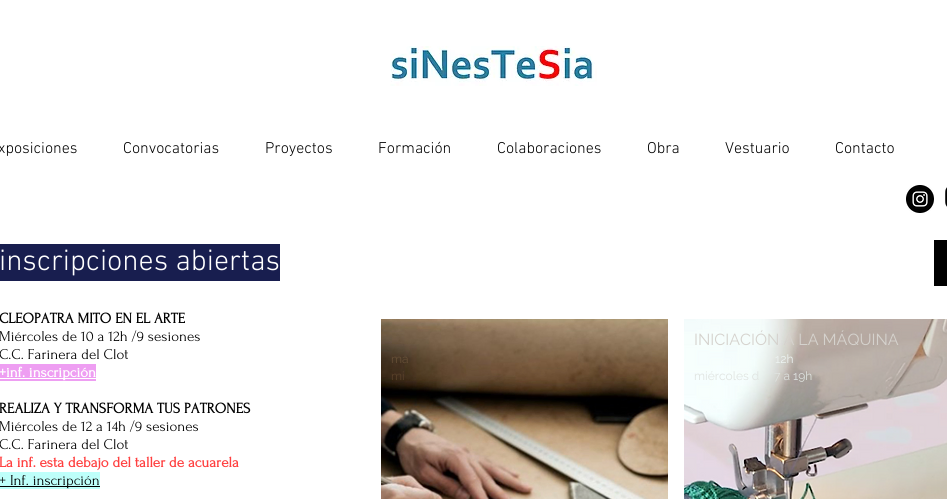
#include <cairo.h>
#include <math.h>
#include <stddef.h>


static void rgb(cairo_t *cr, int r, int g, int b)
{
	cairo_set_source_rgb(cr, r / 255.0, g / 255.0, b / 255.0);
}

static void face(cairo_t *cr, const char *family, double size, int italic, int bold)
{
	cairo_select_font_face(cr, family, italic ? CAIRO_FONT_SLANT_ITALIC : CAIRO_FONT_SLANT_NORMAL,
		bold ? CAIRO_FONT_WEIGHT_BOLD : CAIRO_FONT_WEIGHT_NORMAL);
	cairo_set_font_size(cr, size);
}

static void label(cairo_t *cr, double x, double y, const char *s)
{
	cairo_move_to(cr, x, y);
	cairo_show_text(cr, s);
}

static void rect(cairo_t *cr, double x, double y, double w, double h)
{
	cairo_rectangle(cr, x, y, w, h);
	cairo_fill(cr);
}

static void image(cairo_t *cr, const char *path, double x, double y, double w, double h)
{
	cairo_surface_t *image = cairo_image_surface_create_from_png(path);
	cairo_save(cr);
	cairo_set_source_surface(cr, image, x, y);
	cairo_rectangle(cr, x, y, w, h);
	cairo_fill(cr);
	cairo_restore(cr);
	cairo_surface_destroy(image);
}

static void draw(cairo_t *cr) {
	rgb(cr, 255, 255, 255);
	cairo_paint(cr);
	image(cr, "image0.png", 390, 46, 207, 40);
	face(cr, "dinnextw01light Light", 16, 0, 0);
	rgb(cr, 0, 0, 0);
	label(cr, -2, 153, "xposiciones");
	label(cr, 123, 153, "Convocatorias");
	label(cr, 265, 153, "Proyectos");
	label(cr, 378, 153, "Formación");
	label(cr, 497, 153, "Colaboraciones");
	label(cr, 647, 153, "Obra");
	label(cr, 725, 153, "Vestuario");
	label(cr, 835, 153, "Contacto");
	image(cr, "image1.png", 906, 185, 28, 28);
	image(cr, "image2.png", 945, 187, 2, 20);
	rgb(cr, 24, 30, 79);
	rect(cr, 0, 244, 280, 37);
	face(cr, "dinnextw01light Light", 30, 0, 0);
	rgb(cr, 255, 255, 255);
	label(cr, -1, 270, "inscripciones abiertas");
	rgb(cr, 0, 0, 0);
	rect(cr, 934, 240, 13, 46);
	face(cr, "Forum", 15, 0, 1);
	label(cr, -1, 323, "CLEOPATRA MITO EN EL ARTE");
	face(cr, "Forum", 15, 0, 0);
	label(cr, -1, 341, "Miércoles de 10 a 12h /9 sesiones");
	label(cr, -1, 359, "C.C. Farinera del Clot");
	rgb(cr, 238, 158, 242);
	rect(cr, 0, 364, 96, 17);
	rgb(cr, 255, 255, 255);
	rect(cr, 0, 378, 96, 1);
	face(cr, "Forum", 15, 0, 1);
	label(cr, -1, 377, "+inf. inscripción");
	rgb(cr, 0, 0, 0);
	label(cr, -1, 413, "REALIZA Y TRANSFORMA TUS PATRONES");
	face(cr, "Forum", 15, 0, 0);
	label(cr, -1, 431, "Miércoles de 12 a 14h /9 sesiones");
	label(cr, -1, 449, "C.C. Farinera del Clot");
	face(cr, "Forum", 15, 0, 1);
	rgb(cr, 255, 64, 64);
	label(cr, -1, 467, "La inf. esta debajo del taller de acuarela");
	rgb(cr, 190, 255, 250);
	rect(cr, 0, 472, 100, 17);
	rgb(cr, 0, 0, 0);
	rect(cr, 0, 486, 100, 1);
	face(cr, "Forum", 15, 0, 0);
	label(cr, -1, 485, "+ Inf. inscripción");
	image(cr, "image3.png", 381, 319, 287, 180);
	face(cr, "Raleway", 12, 0, 0);
	rgb(cr, 101, 78, 54);
	label(cr, 391, 363, "ma");
	rgb(cr, 87, 64, 41);
	label(cr, 391, 380, "mi");
	image(cr, "image4.png", 684, 319, 263, 180);
	face(cr, "Raleway", 16, 0, 0);
	rgb(cr, 213, 210, 205);
	label(cr, 694, 345, "INICIACIÓN A LA MÁQUINA");
	face(cr, "Raleway", 12, 0, 0);
	rgb(cr, 237, 243, 241);
	label(cr, 775, 363, "12h");
	rgb(cr, 223, 227, 224);
	label(cr, 694, 380, "miércoles d");
	label(cr, 774, 380, "7 a 19h");
}

int main(void) {
	cairo_surface_t *surface = cairo_image_surface_create(CAIRO_FORMAT_RGB24, 947, 499);
	cairo_t *cr = cairo_create(surface);
	cairo_font_options_t *options = cairo_font_options_create();
	cairo_font_options_set_hint_metrics(options, CAIRO_HINT_METRICS_OFF);
	cairo_font_options_set_hint_style(options, CAIRO_HINT_STYLE_NONE);
	cairo_set_font_options(cr, options);
	cairo_set_miter_limit(cr, 4);
	draw(cr);
	cairo_surface_write_to_png(surface, "render.png");
	cairo_font_options_destroy(options);
	cairo_destroy(cr);
	cairo_surface_destroy(surface);
	return 0;
}
